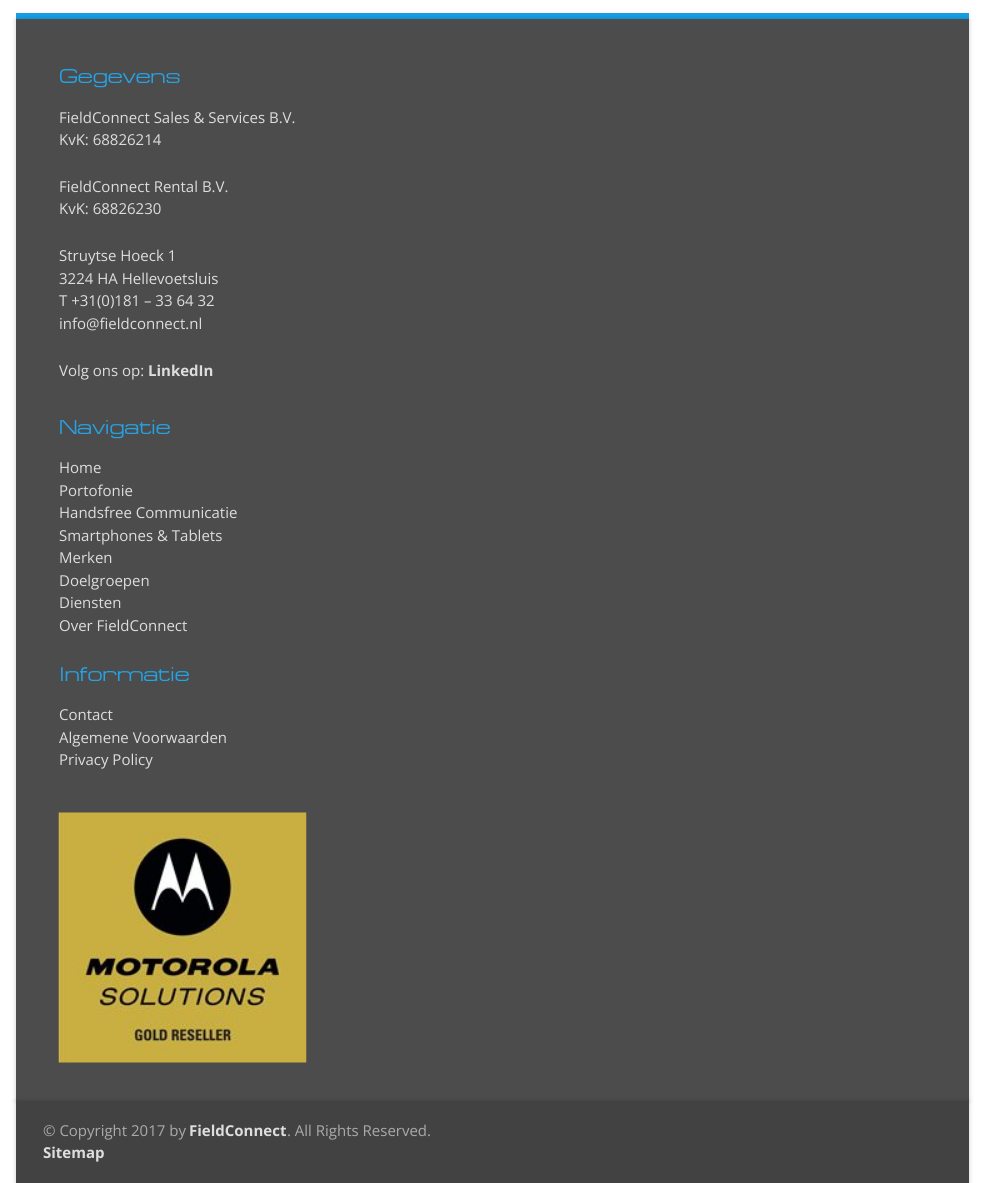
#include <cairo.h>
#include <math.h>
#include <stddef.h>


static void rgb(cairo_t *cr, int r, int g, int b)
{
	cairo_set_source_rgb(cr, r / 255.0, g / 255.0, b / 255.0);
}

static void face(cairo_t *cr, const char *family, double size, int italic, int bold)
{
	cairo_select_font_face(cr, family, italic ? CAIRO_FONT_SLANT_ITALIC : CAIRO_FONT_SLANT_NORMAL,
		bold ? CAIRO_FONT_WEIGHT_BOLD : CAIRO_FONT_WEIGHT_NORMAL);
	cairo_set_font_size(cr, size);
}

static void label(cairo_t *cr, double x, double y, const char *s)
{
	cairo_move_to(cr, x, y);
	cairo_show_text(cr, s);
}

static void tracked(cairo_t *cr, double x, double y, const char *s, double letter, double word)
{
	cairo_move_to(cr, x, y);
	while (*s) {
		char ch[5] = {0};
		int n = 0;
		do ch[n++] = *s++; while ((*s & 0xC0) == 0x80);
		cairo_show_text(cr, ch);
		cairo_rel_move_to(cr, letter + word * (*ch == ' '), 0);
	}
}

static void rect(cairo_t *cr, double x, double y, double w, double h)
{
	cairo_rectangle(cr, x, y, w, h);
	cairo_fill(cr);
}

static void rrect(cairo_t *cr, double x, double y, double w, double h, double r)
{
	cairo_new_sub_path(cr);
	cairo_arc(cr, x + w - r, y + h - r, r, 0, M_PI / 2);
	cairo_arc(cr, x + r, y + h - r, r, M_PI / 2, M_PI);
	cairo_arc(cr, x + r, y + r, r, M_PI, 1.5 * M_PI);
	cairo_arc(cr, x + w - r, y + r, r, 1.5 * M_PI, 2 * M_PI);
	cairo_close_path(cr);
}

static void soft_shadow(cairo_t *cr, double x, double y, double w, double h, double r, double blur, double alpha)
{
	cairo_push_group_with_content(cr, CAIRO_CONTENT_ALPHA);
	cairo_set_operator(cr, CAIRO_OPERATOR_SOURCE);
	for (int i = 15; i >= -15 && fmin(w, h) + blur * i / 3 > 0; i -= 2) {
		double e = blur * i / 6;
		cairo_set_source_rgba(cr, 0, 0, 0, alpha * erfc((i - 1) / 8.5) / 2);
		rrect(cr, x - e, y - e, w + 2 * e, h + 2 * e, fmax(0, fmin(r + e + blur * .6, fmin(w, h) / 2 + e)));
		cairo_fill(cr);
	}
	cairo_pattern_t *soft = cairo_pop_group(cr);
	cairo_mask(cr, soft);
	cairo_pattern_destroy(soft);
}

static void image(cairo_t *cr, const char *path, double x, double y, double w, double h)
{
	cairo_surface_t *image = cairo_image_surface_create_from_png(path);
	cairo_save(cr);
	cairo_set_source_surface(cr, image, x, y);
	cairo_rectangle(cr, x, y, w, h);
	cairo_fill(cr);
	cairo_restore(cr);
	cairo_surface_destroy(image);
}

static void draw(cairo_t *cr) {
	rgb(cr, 255, 255, 255);
	cairo_paint(cr);
	rgb(cr, 22, 159, 230);
	rect(cr, 16, 13, 953, 6);
	rgb(cr, 0, 0, 0);
	soft_shadow(cr, 16, 19, 953, 1082, 0, 2.5, 0.2);
	rgb(cr, 76, 76, 76);
	rect(cr, 16, 19, 953, 1082);
	face(cr, "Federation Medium", 20, 0, 0);
	rgb(cr, 35, 164, 231);
	tracked(cr, 59, 83, "Gegevens", -0.25, 0);
	face(cr, "Open Sans", 15, 0, 0);
	rgb(cr, 221, 221, 221);
	label(cr, 59, 123, "FieldConnect Sales & Services B.V.");
	label(cr, 59, 145, "KvK: 68826214");
	label(cr, 59, 192, "FieldConnect Rental B.V.");
	label(cr, 59, 214, "KvK: 68826230");
	label(cr, 59, 261, "Struytse Hoeck 1");
	label(cr, 59, 284, "3224 HA Hellevoetsluis");
	label(cr, 59, 306, "T +31(0)181 – 33 64 32");
	label(cr, 59, 329, "info@fieldconnect.nl");
	label(cr, 59, 376, "Volg ons op:");
	face(cr, "Open Sans", 15, 0, 1);
	label(cr, 148, 376, "LinkedIn");
	face(cr, "Federation Medium", 20, 0, 0);
	rgb(cr, 35, 164, 231);
	tracked(cr, 59, 434, "Navigatie", -0.25, 0);
	face(cr, "Open Sans", 15, 0, 0);
	rgb(cr, 221, 221, 221);
	label(cr, 59, 473, "Home");
	label(cr, 59, 496, "Portofonie");
	label(cr, 59, 518, "Handsfree Communicatie");
	label(cr, 59, 541, "Smartphones & Tablets");
	label(cr, 59, 563, "Merken");
	label(cr, 59, 586, "Doelgroepen");
	label(cr, 59, 608, "Diensten");
	label(cr, 59, 631, "Over FieldConnect");
	face(cr, "Federation Medium", 20, 0, 0);
	rgb(cr, 35, 164, 231);
	tracked(cr, 59, 681, "Informatie", -0.25, 0);
	face(cr, "Open Sans", 15, 0, 0);
	rgb(cr, 221, 221, 221);
	label(cr, 59, 720, "Contact");
	label(cr, 59, 743, "Algemene Voorwaarden");
	label(cr, 59, 765, "Privacy Policy");
	image(cr, "image0.png", 58, 812, 249, 251);
	rgb(cr, 0, 0, 0);
	soft_shadow(cr, 16, 1101, 953, 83, 0, 2.5, 0.2);
	rgb(cr, 66, 66, 66);
	rect(cr, 16, 1101, 953, 82);
	rgb(cr, 170, 170, 170);
	label(cr, 43, 1136, "© Copyright 2017 by");
	face(cr, "Open Sans", 15, 0, 1);
	rgb(cr, 221, 221, 221);
	label(cr, 189, 1136, "FieldConnect");
	face(cr, "Open Sans", 15, 0, 0);
	rgb(cr, 170, 170, 170);
	label(cr, 287, 1136, ". All Rights Reserved.");
	face(cr, "Open Sans", 15, 0, 1);
	rgb(cr, 221, 221, 221);
	label(cr, 43, 1158, "Sitemap");
}

int main(void) {
	cairo_surface_t *surface = cairo_image_surface_create(CAIRO_FORMAT_RGB24, 985, 1183);
	cairo_t *cr = cairo_create(surface);
	cairo_font_options_t *options = cairo_font_options_create();
	cairo_font_options_set_hint_metrics(options, CAIRO_HINT_METRICS_OFF);
	cairo_font_options_set_hint_style(options, CAIRO_HINT_STYLE_NONE);
	cairo_set_font_options(cr, options);
	cairo_set_miter_limit(cr, 4);
	draw(cr);
	cairo_surface_write_to_png(surface, "render.png");
	cairo_font_options_destroy(options);
	cairo_destroy(cr);
	cairo_surface_destroy(surface);
	return 0;
}
